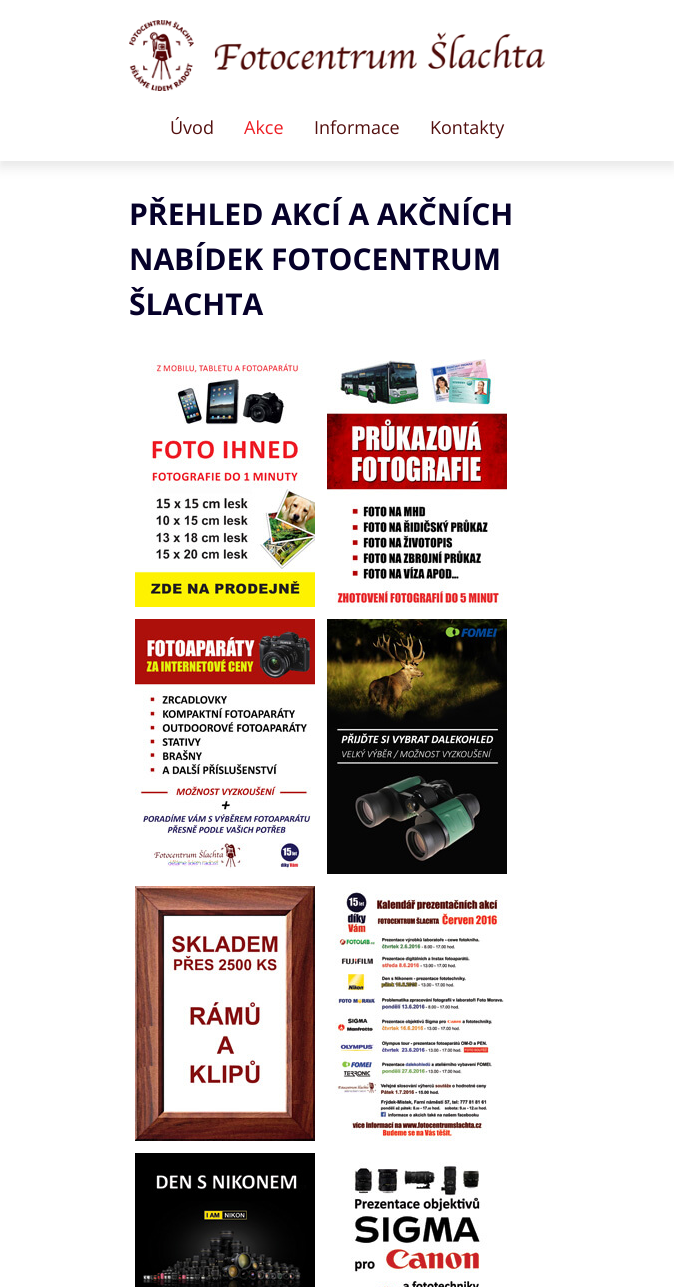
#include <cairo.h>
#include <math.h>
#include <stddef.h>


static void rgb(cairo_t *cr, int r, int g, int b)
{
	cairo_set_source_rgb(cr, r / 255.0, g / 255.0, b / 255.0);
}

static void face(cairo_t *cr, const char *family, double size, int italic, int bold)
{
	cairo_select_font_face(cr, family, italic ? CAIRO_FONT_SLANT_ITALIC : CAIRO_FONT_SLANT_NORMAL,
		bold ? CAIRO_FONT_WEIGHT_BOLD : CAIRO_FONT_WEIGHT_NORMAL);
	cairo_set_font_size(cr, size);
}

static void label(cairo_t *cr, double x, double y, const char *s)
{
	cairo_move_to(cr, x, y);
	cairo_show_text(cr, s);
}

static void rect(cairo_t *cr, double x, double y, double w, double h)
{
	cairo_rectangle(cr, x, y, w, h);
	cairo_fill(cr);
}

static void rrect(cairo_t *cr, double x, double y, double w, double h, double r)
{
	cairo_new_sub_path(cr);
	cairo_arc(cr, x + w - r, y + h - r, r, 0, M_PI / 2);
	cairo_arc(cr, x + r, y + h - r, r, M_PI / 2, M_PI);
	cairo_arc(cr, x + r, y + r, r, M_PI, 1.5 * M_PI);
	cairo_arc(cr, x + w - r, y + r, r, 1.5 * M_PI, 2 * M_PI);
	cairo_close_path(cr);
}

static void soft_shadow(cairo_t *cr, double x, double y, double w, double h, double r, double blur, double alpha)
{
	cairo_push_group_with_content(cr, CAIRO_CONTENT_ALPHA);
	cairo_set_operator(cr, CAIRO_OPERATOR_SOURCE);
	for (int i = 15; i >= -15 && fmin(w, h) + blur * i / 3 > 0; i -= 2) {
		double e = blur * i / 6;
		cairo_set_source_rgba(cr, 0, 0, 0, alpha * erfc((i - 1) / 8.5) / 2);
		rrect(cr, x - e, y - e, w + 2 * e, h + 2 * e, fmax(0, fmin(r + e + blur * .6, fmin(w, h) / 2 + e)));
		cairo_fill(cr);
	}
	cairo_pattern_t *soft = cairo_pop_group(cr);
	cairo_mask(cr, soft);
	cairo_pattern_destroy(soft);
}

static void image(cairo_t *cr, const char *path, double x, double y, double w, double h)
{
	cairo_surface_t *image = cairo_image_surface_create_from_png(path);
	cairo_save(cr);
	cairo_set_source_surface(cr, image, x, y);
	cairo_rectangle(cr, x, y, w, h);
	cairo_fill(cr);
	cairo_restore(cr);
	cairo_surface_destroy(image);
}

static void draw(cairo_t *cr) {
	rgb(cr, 255, 255, 255);
	cairo_paint(cr);
	rgb(cr, 0, 0, 0);
	soft_shadow(cr, 0, 6, 674, 161, 0, 6.5, 0.1);
	rgb(cr, 255, 255, 255);
	rect(cr, 0, 0, 674, 161);
	image(cr, "image0.png", 129, 20, 416, 71);
	face(cr, "Open Sans", 18, 0, 0);
	rgb(cr, 83, 16, 15);
	label(cr, 170, 134, "Úvod");
	rgb(cr, 237, 30, 36);
	label(cr, 244, 134, "Akce");
	rgb(cr, 83, 16, 15);
	label(cr, 314, 134, "Informace");
	label(cr, 430, 134, "Kontakty");
	face(cr, "Open Sans", 30, 0, 1);
	rgb(cr, 6, 1, 42);
	label(cr, 129, 225, "PŘEHLED AKCÍ A AKČNÍCH");
	label(cr, 129, 270, "NABÍDEK FOTOCENTRUM");
	label(cr, 129, 315, "ŠLACHTA");
	image(cr, "image1.png", 135, 360, 180, 247);
	image(cr, "image2.png", 327, 359, 180, 248);
	image(cr, "image3.png", 135, 619, 180, 252);
	image(cr, "image4.png", 327, 619, 180, 255);
	image(cr, "image5.png", 135, 886, 180, 255);
	image(cr, "image6.png", 335, 887, 169, 254);
	image(cr, "image7.png", 135, 1153, 180, 134);
	image(cr, "image8.png", 351, 1162, 136, 125);
}

int main(void) {
	cairo_surface_t *surface = cairo_image_surface_create(CAIRO_FORMAT_RGB24, 674, 1287);
	cairo_t *cr = cairo_create(surface);
	cairo_font_options_t *options = cairo_font_options_create();
	cairo_font_options_set_hint_metrics(options, CAIRO_HINT_METRICS_OFF);
	cairo_font_options_set_hint_style(options, CAIRO_HINT_STYLE_NONE);
	cairo_set_font_options(cr, options);
	cairo_set_miter_limit(cr, 4);
	draw(cr);
	cairo_surface_write_to_png(surface, "render.png");
	cairo_font_options_destroy(options);
	cairo_destroy(cr);
	cairo_surface_destroy(surface);
	return 0;
}
